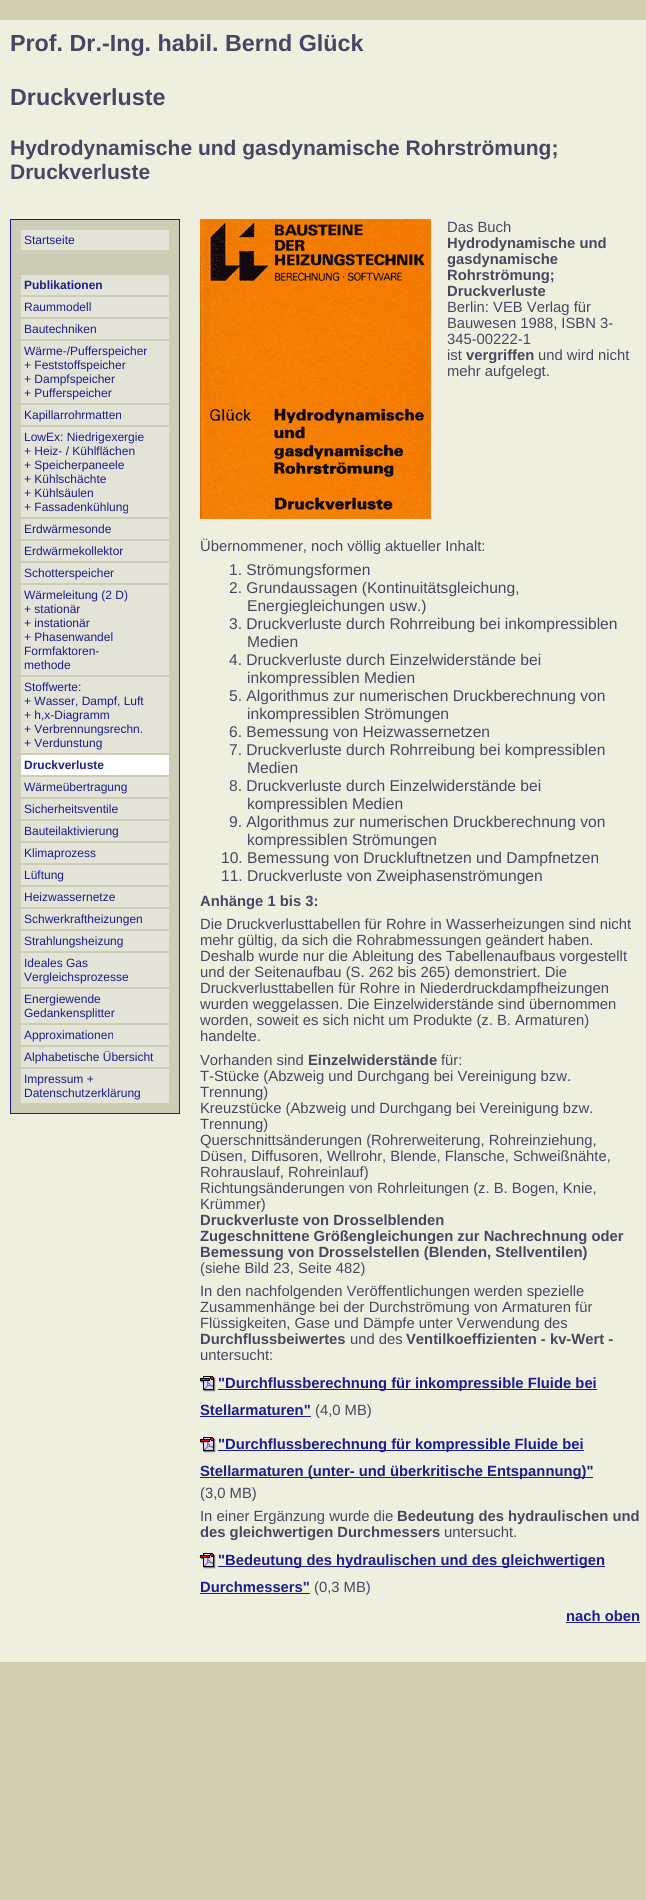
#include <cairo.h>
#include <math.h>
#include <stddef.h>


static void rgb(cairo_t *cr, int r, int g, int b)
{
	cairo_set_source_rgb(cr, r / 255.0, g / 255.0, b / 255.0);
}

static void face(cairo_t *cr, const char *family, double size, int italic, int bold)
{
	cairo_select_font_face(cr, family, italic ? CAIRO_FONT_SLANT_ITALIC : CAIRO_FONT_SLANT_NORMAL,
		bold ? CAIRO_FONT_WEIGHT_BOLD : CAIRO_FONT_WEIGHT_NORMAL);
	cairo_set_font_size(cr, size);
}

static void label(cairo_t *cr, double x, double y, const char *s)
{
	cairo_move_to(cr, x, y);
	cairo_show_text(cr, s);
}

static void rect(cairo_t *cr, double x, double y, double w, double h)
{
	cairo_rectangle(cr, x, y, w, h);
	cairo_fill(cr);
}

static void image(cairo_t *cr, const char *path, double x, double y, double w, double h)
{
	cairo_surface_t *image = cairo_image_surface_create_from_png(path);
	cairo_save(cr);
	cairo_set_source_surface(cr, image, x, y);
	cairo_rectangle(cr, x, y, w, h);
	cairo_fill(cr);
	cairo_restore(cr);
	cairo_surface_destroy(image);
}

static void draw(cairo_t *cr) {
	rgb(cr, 208, 208, 177);
	cairo_paint(cr);
	rgb(cr, 239, 239, 224);
	rect(cr, 0, 20, 646, 1642);
	face(cr, "Liberation Sans", 23.3, 0, 1);
	rgb(cr, 71, 71, 99);
	label(cr, 10, 51, "Prof. Dr.-Ing. habil. Bernd Glück");
	label(cr, 10, 105, "Druckverluste");
	face(cr, "Liberation Sans", 21, 0, 1);
	label(cr, 10, 155, "Hydrodynamische und gasdynamische Rohrströmung;");
	label(cr, 10, 179, "Druckverluste");
	rgb(cr, 204, 204, 183);
	cairo_rectangle(cr, 10.5, 219.5, 169, 894);
	cairo_fill_preserve(cr);
	rgb(cr, 28, 29, 142);
	cairo_set_line_width(cr, 1);
	cairo_stroke(cr);
	rgb(cr, 227, 227, 215);
	rect(cr, 21, 230, 148, 20);
	face(cr, "Liberation Sans", 12, 0, 0);
	rgb(cr, 28, 29, 142);
	label(cr, 24, 244, "Startseite");
	rgb(cr, 227, 227, 215);
	rect(cr, 21, 275, 148, 20);
	face(cr, "Liberation Sans", 12, 0, 1);
	rgb(cr, 28, 29, 142);
	label(cr, 24, 289, "Publikationen");
	rgb(cr, 227, 227, 215);
	rect(cr, 21, 297, 148, 20);
	face(cr, "Liberation Sans", 12, 0, 0);
	rgb(cr, 28, 29, 142);
	label(cr, 24, 311, "Raummodell");
	rgb(cr, 227, 227, 215);
	rect(cr, 21, 319, 148, 20);
	rgb(cr, 28, 29, 142);
	label(cr, 24, 333, "Bautechniken");
	rgb(cr, 227, 227, 215);
	rect(cr, 21, 341, 148, 62);
	rgb(cr, 28, 29, 142);
	label(cr, 24, 355, "Wärme-/Pufferspeicher");
	label(cr, 24, 369, "+ Feststoffspeicher");
	label(cr, 24, 383, "+ Dampfspeicher");
	label(cr, 24, 397, "+ Pufferspeicher");
	rgb(cr, 227, 227, 215);
	rect(cr, 21, 405, 148, 20);
	rgb(cr, 28, 29, 142);
	label(cr, 24, 419, "Kapillarrohrmatten");
	rgb(cr, 227, 227, 215);
	rect(cr, 21, 427, 148, 90);
	rgb(cr, 28, 29, 142);
	label(cr, 24, 441, "LowEx: Niedrigexergie");
	label(cr, 24, 455, "+ Heiz- / Kühlflächen");
	label(cr, 24, 469, "+ Speicherpaneele");
	label(cr, 24, 483, "+ Kühlschächte");
	label(cr, 24, 497, "+ Kühlsäulen");
	label(cr, 24, 511, "+ Fassadenkühlung");
	rgb(cr, 227, 227, 215);
	rect(cr, 21, 519, 148, 20);
	rgb(cr, 28, 29, 142);
	label(cr, 24, 533, "Erdwärmesonde");
	rgb(cr, 227, 227, 215);
	rect(cr, 21, 541, 148, 20);
	rgb(cr, 28, 29, 142);
	label(cr, 24, 555, "Erdwärmekollektor");
	rgb(cr, 227, 227, 215);
	rect(cr, 21, 563, 148, 20);
	rgb(cr, 28, 29, 142);
	label(cr, 24, 577, "Schotterspeicher");
	rgb(cr, 227, 227, 215);
	rect(cr, 21, 585, 148, 90);
	rgb(cr, 28, 29, 142);
	label(cr, 24, 599, "Wärmeleitung (2 D)");
	label(cr, 24, 613, "+ stationär");
	label(cr, 24, 627, "+ instationär");
	label(cr, 24, 641, "+ Phasenwandel");
	label(cr, 24, 655, "Formfaktoren-");
	label(cr, 24, 669, "methode");
	rgb(cr, 227, 227, 215);
	rect(cr, 21, 677, 148, 76);
	rgb(cr, 28, 29, 142);
	label(cr, 24, 691, "Stoffwerte:");
	label(cr, 24, 705, "+ Wasser, Dampf, Luft");
	label(cr, 24, 719, "+ h,x-Diagramm");
	label(cr, 24, 733, "+ Verbrennungsrechn.");
	label(cr, 24, 747, "+ Verdunstung");
	rgb(cr, 255, 255, 255);
	rect(cr, 21, 755, 148, 20);
	face(cr, "Liberation Sans", 12, 0, 1);
	rgb(cr, 28, 29, 142);
	label(cr, 24, 769, "Druckverluste");
	rgb(cr, 227, 227, 215);
	rect(cr, 21, 777, 148, 20);
	face(cr, "Liberation Sans", 12, 0, 0);
	rgb(cr, 28, 29, 142);
	label(cr, 24, 791, "Wärmeübertragung");
	rgb(cr, 227, 227, 215);
	rect(cr, 21, 799, 148, 20);
	rgb(cr, 28, 29, 142);
	label(cr, 24, 813, "Sicherheitsventile");
	rgb(cr, 227, 227, 215);
	rect(cr, 21, 821, 148, 20);
	rgb(cr, 28, 29, 142);
	label(cr, 24, 835, "Bauteilaktivierung");
	rgb(cr, 227, 227, 215);
	rect(cr, 21, 843, 148, 20);
	rgb(cr, 28, 29, 142);
	label(cr, 24, 857, "Klimaprozess");
	rgb(cr, 227, 227, 215);
	rect(cr, 21, 865, 148, 20);
	rgb(cr, 28, 29, 142);
	label(cr, 24, 879, "Lüftung");
	rgb(cr, 227, 227, 215);
	rect(cr, 21, 887, 148, 20);
	rgb(cr, 28, 29, 142);
	label(cr, 24, 901, "Heizwassernetze");
	rgb(cr, 227, 227, 215);
	rect(cr, 21, 909, 148, 20);
	rgb(cr, 28, 29, 142);
	label(cr, 24, 923, "Schwerkraftheizungen");
	rgb(cr, 227, 227, 215);
	rect(cr, 21, 931, 148, 20);
	rgb(cr, 28, 29, 142);
	label(cr, 24, 945, "Strahlungsheizung");
	rgb(cr, 227, 227, 215);
	rect(cr, 21, 953, 148, 34);
	rgb(cr, 28, 29, 142);
	label(cr, 24, 967, "Ideales Gas");
	label(cr, 24, 981, "Vergleichsprozesse");
	rgb(cr, 227, 227, 215);
	rect(cr, 21, 989, 148, 34);
	rgb(cr, 28, 29, 142);
	label(cr, 24, 1003, "Energiewende");
	label(cr, 24, 1017, "Gedankensplitter");
	rgb(cr, 227, 227, 215);
	rect(cr, 21, 1025, 148, 20);
	rgb(cr, 28, 29, 142);
	label(cr, 24, 1039, "Approximationen");
	rgb(cr, 227, 227, 215);
	rect(cr, 21, 1047, 148, 20);
	rgb(cr, 28, 29, 142);
	label(cr, 24, 1061, "Alphabetische Übersicht");
	rgb(cr, 227, 227, 215);
	rect(cr, 21, 1069, 148, 34);
	rgb(cr, 28, 29, 142);
	label(cr, 24, 1083, "Impressum +");
	label(cr, 24, 1097, "Datenschutzerklärung");
	image(cr, "image0.png", 200, 219, 231, 300);
	face(cr, "Liberation Sans", 14.8, 0, 0);
	rgb(cr, 71, 71, 99);
	label(cr, 447, 232, "Das Buch");
	face(cr, "Liberation Sans", 14.8, 0, 1);
	label(cr, 447, 248, "Hydrodynamische und");
	label(cr, 447, 264, "gasdynamische");
	label(cr, 447, 280, "Rohrströmung;");
	label(cr, 447, 296, "Druckverluste");
	face(cr, "Liberation Sans", 14.8, 0, 0);
	label(cr, 447, 312, "Berlin: VEB Verlag für");
	label(cr, 447, 328, "Bauwesen 1988, ISBN 3-");
	label(cr, 447, 344, "345-00222-1");
	label(cr, 447, 360, "ist");
	face(cr, "Liberation Sans", 14.8, 0, 1);
	label(cr, 466, 360, "vergriffen");
	face(cr, "Liberation Sans", 14.8, 0, 0);
	label(cr, 538, 360, "und wird nicht");
	label(cr, 447, 376, "mehr aufgelegt.");
	label(cr, 200, 551, "Übernommener, noch völlig aktueller Inhalt:");
	face(cr, "Liberation Sans", 15.6, 0, 0);
	label(cr, 229, 575, "1. Strömungsformen");
	label(cr, 229, 593, "2. Grundaussagen (Kontinuitätsgleichung,");
	label(cr, 247, 611, "Energiegleichungen usw.)");
	label(cr, 229, 629, "3. Druckverluste durch Rohrreibung bei inkompressiblen");
	label(cr, 247, 647, "Medien");
	label(cr, 229, 665, "4. Druckverluste durch Einzelwiderstände bei");
	label(cr, 247, 683, "inkompressiblen Medien");
	label(cr, 229, 701, "5. Algorithmus zur numerischen Druckberechnung von");
	label(cr, 247, 719, "inkompressiblen Strömungen");
	label(cr, 229, 737, "6. Bemessung von Heizwassernetzen");
	label(cr, 229, 755, "7. Druckverluste durch Rohrreibung bei kompressiblen");
	label(cr, 247, 773, "Medien");
	label(cr, 229, 791, "8. Druckverluste durch Einzelwiderstände bei");
	label(cr, 247, 809, "kompressiblen Medien");
	label(cr, 229, 827, "9. Algorithmus zur numerischen Druckberechnung von");
	label(cr, 247, 845, "kompressiblen Strömungen");
	label(cr, 221, 863, "10. Bemessung von Druckluftnetzen und Dampfnetzen");
	label(cr, 221, 881, "11. Druckverluste von Zweiphasenströmungen");
	face(cr, "Liberation Sans", 14.8, 0, 1);
	label(cr, 200, 906, "Anhänge 1 bis 3:");
	face(cr, "Liberation Sans", 14.8, 0, 0);
	label(cr, 200, 929, "Die Druckverlusttabellen für Rohre in Wasserheizungen sind nicht");
	label(cr, 200, 945, "mehr gültig, da sich die Rohrabmessungen geändert haben.");
	label(cr, 200, 961, "Deshalb wurde nur die Ableitung des Tabellenaufbaus vorgestellt");
	label(cr, 200, 977, "und der Seitenaufbau (S. 262 bis 265) demonstriert. Die");
	label(cr, 200, 993, "Druckverlusttabellen für Rohre in Niederdruckdampfheizungen");
	label(cr, 200, 1009, "wurden weggelassen. Die Einzelwiderstände sind übernommen");
	label(cr, 200, 1025, "worden, soweit es sich nicht um Produkte (z. B. Armaturen)");
	label(cr, 200, 1041, "handelte.");
	label(cr, 200, 1065, "Vorhanden sind");
	face(cr, "Liberation Sans", 14.8, 0, 1);
	label(cr, 308, 1065, "Einzelwiderstände");
	face(cr, "Liberation Sans", 14.8, 0, 0);
	label(cr, 441, 1065, "für:");
	label(cr, 200, 1081, "T-Stücke (Abzweig und Durchgang bei Vereinigung bzw.");
	label(cr, 200, 1097, "Trennung)");
	label(cr, 200, 1113, "Kreuzstücke (Abzweig und Durchgang bei Vereinigung bzw.");
	label(cr, 200, 1129, "Trennung)");
	label(cr, 200, 1145, "Querschnittsänderungen (Rohrerweiterung, Rohreinziehung,");
	label(cr, 200, 1161, "Düsen, Diffusoren,");
	label(cr, 327, 1161, "Wellrohr, Blende, Flansche, Schweißnähte,");
	label(cr, 200, 1177, "Rohrauslauf, Rohreinlauf)");
	label(cr, 200, 1193, "Richtungsänderungen von Rohrleitungen (z. B. Bogen, Knie,");
	label(cr, 200, 1209, "Krümmer)");
	face(cr, "Liberation Sans", 14.8, 0, 1);
	label(cr, 200, 1225, "Druckverluste von Drosselblenden");
	label(cr, 200, 1241, "Zugeschnittene Größengleichungen zur Nachrechnung oder");
	label(cr, 200, 1257, "Bemessung von Drosselstellen (Blenden, Stellventilen)");
	face(cr, "Liberation Sans", 14.8, 0, 0);
	label(cr, 200, 1273, "(siehe Bild 23, Seite 482)");
	label(cr, 200, 1296, "In den nachfolgenden Veröffentlichungen werden spezielle");
	label(cr, 200, 1312, "Zusammenhänge bei der Durchströmung von Armaturen für");
	label(cr, 200, 1328, "Flüssigkeiten, Gase und Dämpfe unter Verwendung des");
	face(cr, "Liberation Sans", 14.8, 0, 1);
	label(cr, 200, 1344, "Durchflussbeiwertes");
	face(cr, "Liberation Sans", 14.8, 0, 0);
	label(cr, 350, 1344, "und des");
	face(cr, "Liberation Sans", 14.8, 0, 1);
	label(cr, 406, 1344, "Ventilkoeffizienten - kv-Wert -");
	face(cr, "Liberation Sans", 14.8, 0, 0);
	label(cr, 200, 1360, "untersucht:");
	image(cr, "image1.png", 200, 1376, 16, 16);
	rgb(cr, 28, 29, 142);
	rect(cr, 218, 1389, 379, 1);
	face(cr, "Liberation Sans", 14.8, 0, 1);
	label(cr, 218, 1388, "\"Durchflussberechnung für inkompressible Fluide bei");
	label(cr, 200, 1415, "Stellarmaturen\"");
	rect(cr, 200, 1416, 111, 1);
	face(cr, "Liberation Sans", 14.8, 0, 0);
	rgb(cr, 71, 71, 99);
	label(cr, 315, 1415, "(4,0 MB)");
	image(cr, "image1.png", 200, 1437, 16, 16);
	rgb(cr, 28, 29, 142);
	rect(cr, 218, 1450, 366, 1);
	face(cr, "Liberation Sans", 14.8, 0, 1);
	label(cr, 218, 1449, "\"Durchflussberechnung für kompressible Fluide bei");
	rect(cr, 200, 1477, 393, 1);
	label(cr, 200, 1476, "Stellarmaturen (unter- und überkritische Entspannung)\"");
	face(cr, "Liberation Sans", 14.8, 0, 0);
	rgb(cr, 71, 71, 99);
	label(cr, 200, 1498, "(3,0 MB)");
	label(cr, 200, 1521, "In einer Ergänzung wurde die");
	face(cr, "Liberation Sans", 14.8, 0, 1);
	label(cr, 397, 1521, "Bedeutung des hydraulischen und");
	label(cr, 200, 1537, "des gleichwertigen Durchmessers");
	face(cr, "Liberation Sans", 14.8, 0, 0);
	label(cr, 444, 1537, "untersucht.");
	image(cr, "image1.png", 200, 1553, 16, 16);
	rgb(cr, 28, 29, 142);
	rect(cr, 218, 1566, 387, 1);
	face(cr, "Liberation Sans", 14.8, 0, 1);
	label(cr, 218, 1565, "\"Bedeutung des hydraulischen und des gleichwertigen");
	label(cr, 200, 1592, "Durchmessers\"");
	rect(cr, 200, 1593, 110, 1);
	face(cr, "Liberation Sans", 14.8, 0, 0);
	rgb(cr, 71, 71, 99);
	label(cr, 314, 1592, "(0,3 MB)");
	face(cr, "Liberation Sans", 14.8, 0, 1);
	rgb(cr, 28, 29, 142);
	label(cr, 566, 1621, "nach oben");
	rect(cr, 566, 1622, 74, 1);
}

int main(void) {
	cairo_surface_t *surface = cairo_image_surface_create(CAIRO_FORMAT_RGB24, 646, 1900);
	cairo_t *cr = cairo_create(surface);
	cairo_font_options_t *options = cairo_font_options_create();
	cairo_font_options_set_hint_metrics(options, CAIRO_HINT_METRICS_OFF);
	cairo_font_options_set_hint_style(options, CAIRO_HINT_STYLE_NONE);
	cairo_set_font_options(cr, options);
	cairo_set_miter_limit(cr, 4);
	draw(cr);
	cairo_surface_write_to_png(surface, "render.png");
	cairo_font_options_destroy(options);
	cairo_destroy(cr);
	cairo_surface_destroy(surface);
	return 0;
}
